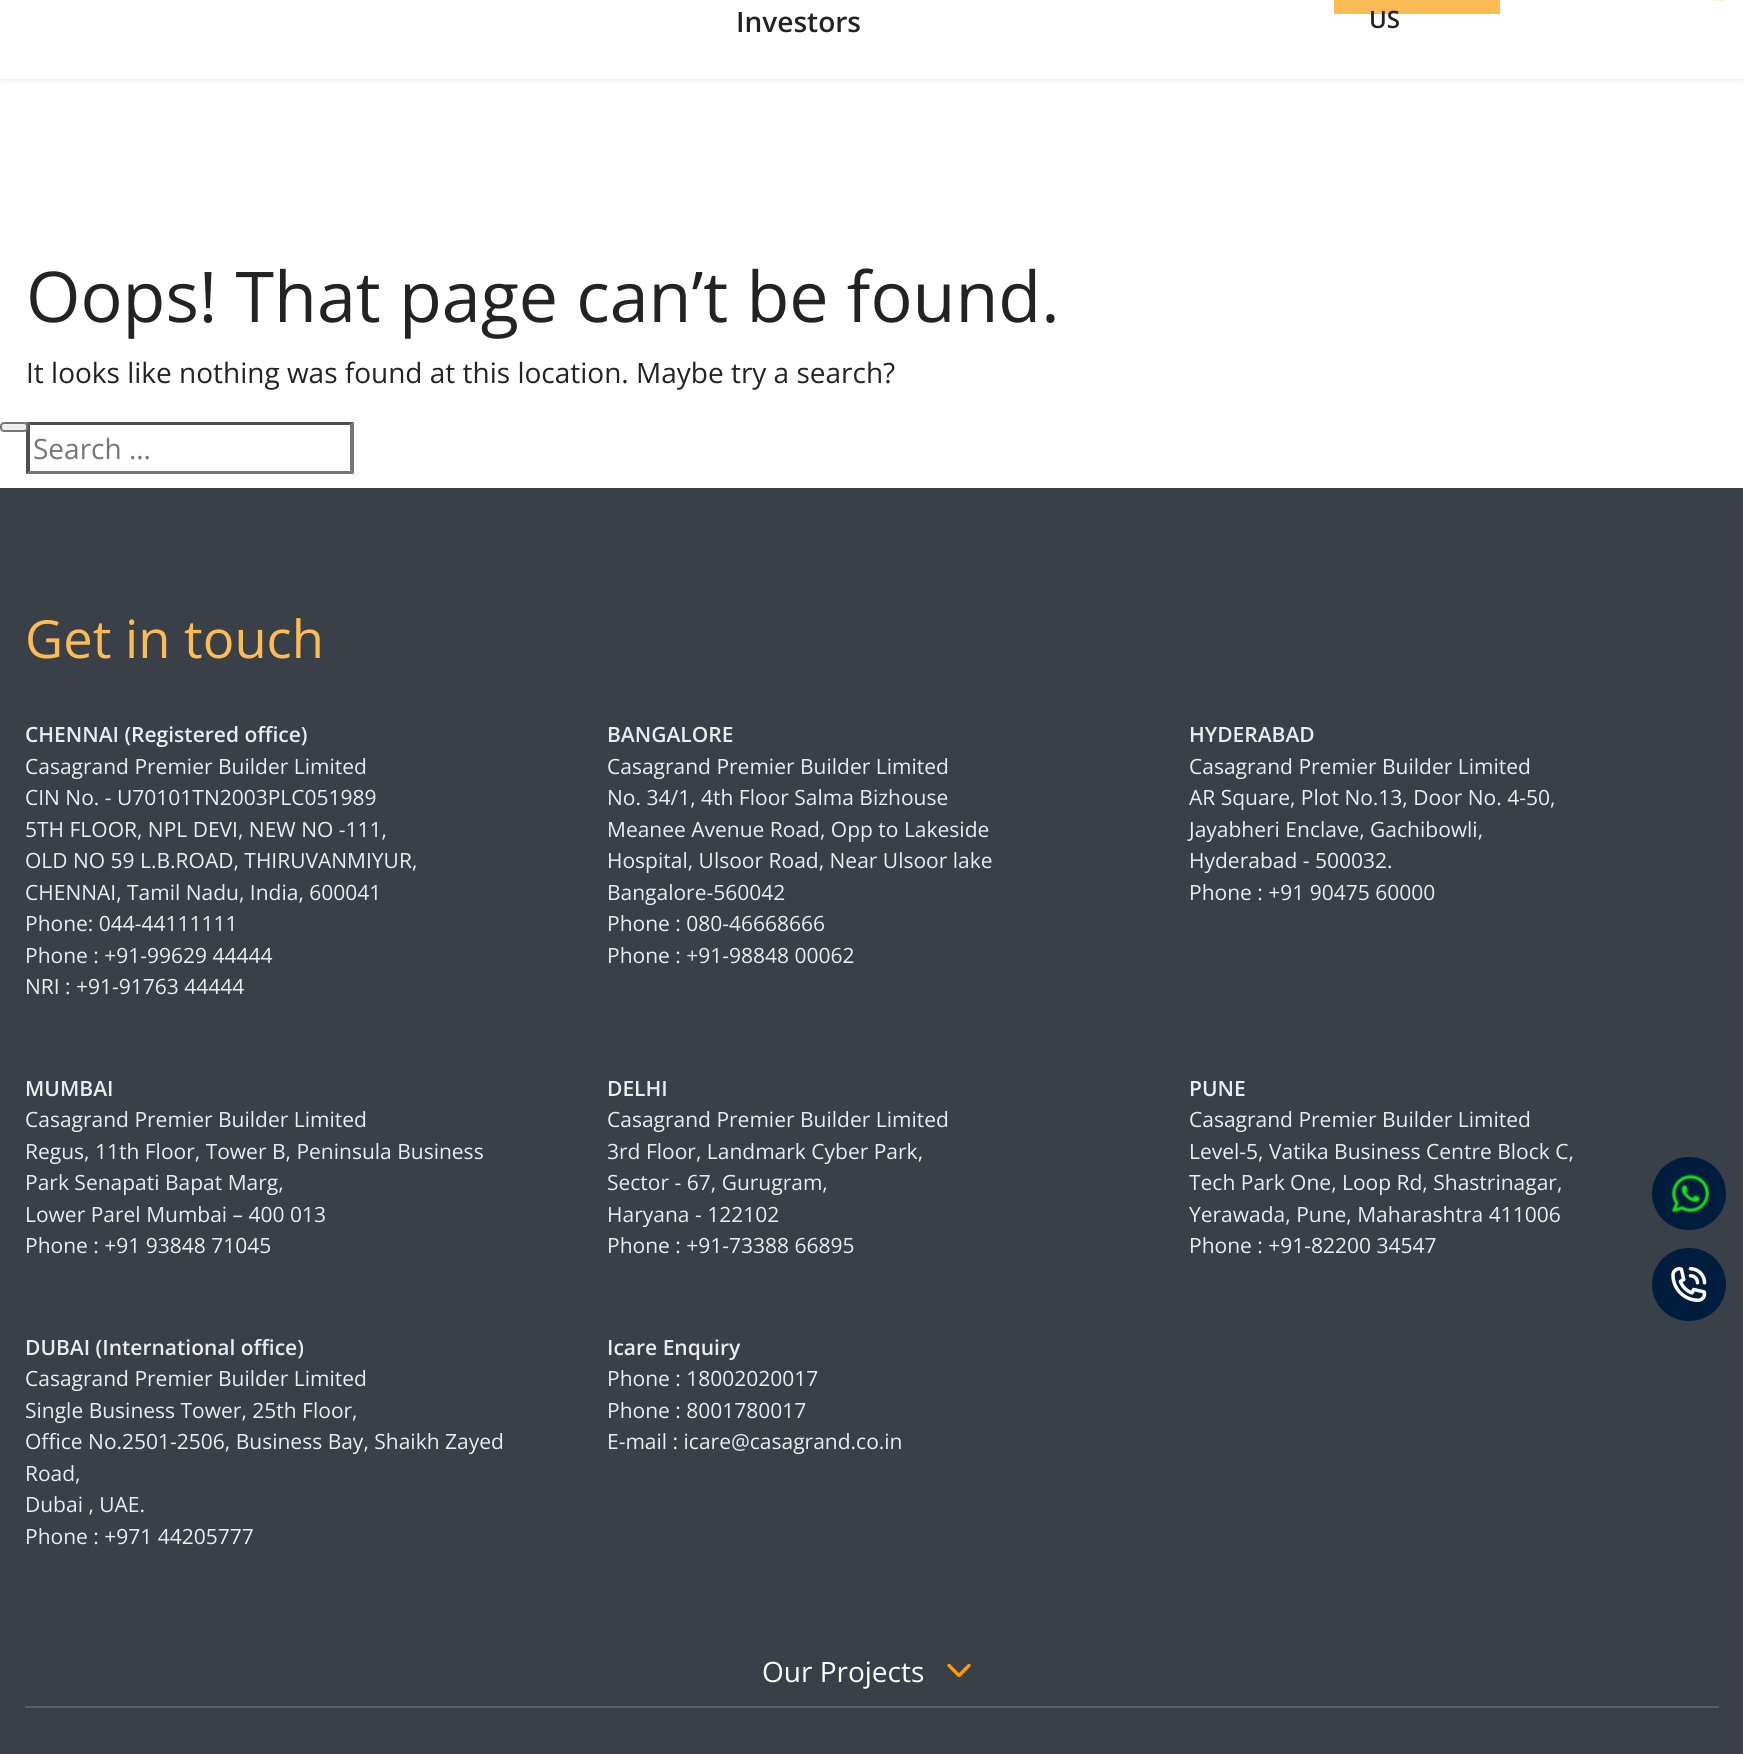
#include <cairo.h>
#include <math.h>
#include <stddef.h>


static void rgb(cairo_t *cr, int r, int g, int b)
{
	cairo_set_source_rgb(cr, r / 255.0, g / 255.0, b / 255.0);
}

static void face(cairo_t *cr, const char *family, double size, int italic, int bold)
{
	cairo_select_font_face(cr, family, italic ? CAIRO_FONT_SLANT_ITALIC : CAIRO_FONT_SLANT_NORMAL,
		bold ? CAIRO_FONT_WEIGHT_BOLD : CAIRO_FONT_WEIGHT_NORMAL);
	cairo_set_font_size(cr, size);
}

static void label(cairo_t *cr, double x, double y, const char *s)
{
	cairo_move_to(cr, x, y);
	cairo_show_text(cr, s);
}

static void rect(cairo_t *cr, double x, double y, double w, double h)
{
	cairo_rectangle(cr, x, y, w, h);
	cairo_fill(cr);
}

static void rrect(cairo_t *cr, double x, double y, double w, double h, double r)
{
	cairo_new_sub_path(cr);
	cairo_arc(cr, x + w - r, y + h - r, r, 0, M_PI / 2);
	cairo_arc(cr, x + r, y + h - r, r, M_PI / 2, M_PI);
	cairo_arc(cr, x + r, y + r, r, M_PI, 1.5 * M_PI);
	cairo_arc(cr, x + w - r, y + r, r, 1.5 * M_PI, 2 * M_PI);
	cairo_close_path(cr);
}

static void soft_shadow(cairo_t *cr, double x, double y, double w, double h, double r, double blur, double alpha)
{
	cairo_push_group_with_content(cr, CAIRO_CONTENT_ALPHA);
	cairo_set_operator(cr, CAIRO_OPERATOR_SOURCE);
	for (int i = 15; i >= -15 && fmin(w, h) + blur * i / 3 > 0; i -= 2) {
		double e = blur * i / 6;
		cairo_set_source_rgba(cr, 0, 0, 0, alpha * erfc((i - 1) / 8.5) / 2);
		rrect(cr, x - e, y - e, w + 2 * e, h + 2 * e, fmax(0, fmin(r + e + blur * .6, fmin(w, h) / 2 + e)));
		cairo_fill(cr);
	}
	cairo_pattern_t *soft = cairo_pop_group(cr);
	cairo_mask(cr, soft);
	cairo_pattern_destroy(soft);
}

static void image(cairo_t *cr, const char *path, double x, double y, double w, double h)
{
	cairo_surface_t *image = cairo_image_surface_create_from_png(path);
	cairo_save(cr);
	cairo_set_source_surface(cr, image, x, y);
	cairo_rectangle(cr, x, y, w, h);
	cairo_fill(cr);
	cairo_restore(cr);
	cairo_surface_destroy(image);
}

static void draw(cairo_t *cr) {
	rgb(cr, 255, 255, 255);
	cairo_paint(cr);
	rgb(cr, 0, 0, 0);
	soft_shadow(cr, 0, -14, 1743, 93, 0, 4.5, 0.1);
	rgb(cr, 255, 255, 255);
	rect(cr, 0, 0, 1743, 79);
	rgb(cr, 252, 187, 85);
	cairo_new_path(cr);
	cairo_move_to(cr, 1692, -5);
	cairo_line_to(cr, 1708, -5);
	cairo_curve_to(cr, 1711, -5, 1728, -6, 1731, -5);
	cairo_line_to(cr, 1731, -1);
	cairo_curve_to(cr, 1728, 1, 1711, 0, 1708, 0);
	cairo_line_to(cr, 1687, 0);
	cairo_line_to(cr, 1685, -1);
	cairo_line_to(cr, 1685, -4);
	cairo_close_path(cr);
	cairo_fill(cr);
	face(cr, "Open Sans SemiBold", 28, 0, 0);
	rgb(cr, 35, 35, 35);
	label(cr, 736, 32, "Investors");
	rgb(cr, 252, 187, 85);
	rect(cr, 1334, 0, 166, 14);
	face(cr, "Open Sans SemiBold", 24, 0, 0);
	rgb(cr, 35, 35, 35);
	label(cr, 1369, 28, "US");
	face(cr, "Open Sans", 70, 0, 0);
	label(cr, 26, 322, "Oops! That page can’t be found.");
	face(cr, "Open Sans", 28, 0, 0);
	label(cr, 26, 383, "It looks like nothing was found at this location. Maybe try a search?");
	rgb(cr, 79, 79, 79);
	cairo_new_path(cr);
	cairo_move_to(cr, 26, 422);
	cairo_line_to(cr, 354, 422);
	cairo_line_to(cr, 350, 425);
	cairo_line_to(cr, 30, 425);
	cairo_close_path(cr);
	cairo_fill(cr);
	rgb(cr, 118, 118, 118);
	cairo_new_path(cr);
	cairo_move_to(cr, 354, 422);
	cairo_line_to(cr, 354, 474);
	cairo_line_to(cr, 350, 471);
	cairo_line_to(cr, 350, 425);
	cairo_close_path(cr);
	cairo_fill(cr);
	cairo_new_path(cr);
	cairo_move_to(cr, 354, 474);
	cairo_line_to(cr, 26, 474);
	cairo_line_to(cr, 30, 471);
	cairo_line_to(cr, 350, 471);
	cairo_close_path(cr);
	cairo_fill(cr);
	rgb(cr, 79, 79, 79);
	cairo_new_path(cr);
	cairo_move_to(cr, 26, 474);
	cairo_line_to(cr, 26, 422);
	cairo_line_to(cr, 30, 425);
	cairo_line_to(cr, 30, 471);
	cairo_close_path(cr);
	cairo_fill(cr);
	rgb(cr, 239, 239, 239);
	rrect(cr, 1, 423, 26, 8, 3);
	cairo_fill_preserve(cr);
	rgb(cr, 118, 118, 118);
	cairo_stroke(cr);
	rgb(cr, 117, 117, 117);
	label(cr, 33, 459, "Search …");
	rgb(cr, 58, 64, 72);
	rect(cr, 0, 488, 1743, 1266);
	face(cr, "Open Sans", 52.5, 0, 0);
	rgb(cr, 252, 187, 85);
	label(cr, 25, 658, "Get in touch");
	face(cr, "Open Sans SemiBold", 21, 0, 0);
	rgb(cr, 235, 236, 237);
	label(cr, 25, 742, "CHENNAI (Registered office)");
	face(cr, "Open Sans", 21, 0, 0);
	label(cr, 25, 774, "Casagrand Premier Builder Limited");
	label(cr, 25, 805, "CIN No. - U70101TN2003PLC051989");
	label(cr, 25, 837, "5TH FLOOR, NPL DEVI, NEW NO -111,");
	label(cr, 25, 868, "OLD NO 59 L.B.ROAD, THIRUVANMIYUR,");
	label(cr, 25, 900, "CHENNAI, Tamil Nadu, India, 600041");
	label(cr, 25, 931, "Phone: 044-44111111");
	label(cr, 25, 963, "Phone : +91-99629 44444");
	label(cr, 25, 994, "NRI : +91-91763 44444");
	face(cr, "Open Sans SemiBold", 21, 0, 0);
	label(cr, 607, 742, "BANGALORE");
	face(cr, "Open Sans", 21, 0, 0);
	label(cr, 607, 774, "Casagrand Premier Builder Limited");
	label(cr, 607, 805, "No. 34/1, 4th Floor Salma Bizhouse");
	label(cr, 607, 837, "Meanee Avenue Road, Opp to Lakeside");
	label(cr, 607, 868, "Hospital, Ulsoor Road, Near Ulsoor lake");
	label(cr, 607, 900, "Bangalore-560042");
	label(cr, 607, 931, "Phone : 080-46668666");
	label(cr, 607, 963, "Phone : +91-98848 00062");
	face(cr, "Open Sans SemiBold", 21, 0, 0);
	label(cr, 1189, 742, "HYDERABAD");
	face(cr, "Open Sans", 21, 0, 0);
	label(cr, 1189, 774, "Casagrand Premier Builder Limited");
	label(cr, 1189, 805, "AR Square, Plot No.13, Door No. 4-50,");
	label(cr, 1189, 837, "Jayabheri Enclave, Gachibowli,");
	label(cr, 1189, 868, "Hyderabad - 500032.");
	label(cr, 1189, 900, "Phone : +91 90475 60000");
	face(cr, "Open Sans SemiBold", 21, 0, 0);
	label(cr, 25, 1096, "MUMBAI");
	face(cr, "Open Sans", 21, 0, 0);
	label(cr, 25, 1127, "Casagrand Premier Builder Limited");
	label(cr, 25, 1159, "Regus, 11th Floor, Tower B, Peninsula Business");
	label(cr, 25, 1190, "Park Senapati Bapat Marg,");
	label(cr, 25, 1222, "Lower Parel Mumbai – 400 013");
	label(cr, 25, 1253, "Phone : +91 93848 71045");
	face(cr, "Open Sans SemiBold", 21, 0, 0);
	label(cr, 607, 1096, "DELHI");
	face(cr, "Open Sans", 21, 0, 0);
	label(cr, 607, 1127, "Casagrand Premier Builder Limited");
	label(cr, 607, 1159, "3rd Floor, Landmark Cyber Park,");
	label(cr, 607, 1190, "Sector - 67, Gurugram,");
	label(cr, 607, 1222, "Haryana - 122102");
	label(cr, 607, 1253, "Phone : +91-73388 66895");
	face(cr, "Open Sans SemiBold", 21, 0, 0);
	label(cr, 1189, 1096, "PUNE");
	face(cr, "Open Sans", 21, 0, 0);
	label(cr, 1189, 1127, "Casagrand Premier Builder Limited");
	label(cr, 1189, 1159, "Level-5, Vatika Business Centre Block C,");
	label(cr, 1189, 1190, "Tech Park One, Loop Rd, Shastrinagar,");
	label(cr, 1189, 1222, "Yerawada, Pune, Maharashtra 411006");
	label(cr, 1189, 1253, "Phone : +91-82200 34547");
	face(cr, "Open Sans SemiBold", 21, 0, 0);
	label(cr, 25, 1355, "DUBAI (International office)");
	face(cr, "Open Sans", 21, 0, 0);
	label(cr, 25, 1386, "Casagrand Premier Builder Limited");
	label(cr, 25, 1418, "Single Business Tower, 25th Floor,");
	label(cr, 25, 1449, "Office No.2501-2506, Business Bay, Shaikh Zayed");
	label(cr, 25, 1481, "Road,");
	label(cr, 25, 1512, "Dubai , UAE.");
	label(cr, 25, 1544, "Phone : +971 44205777");
	face(cr, "Open Sans SemiBold", 21, 0, 0);
	label(cr, 607, 1355, "Icare Enquiry");
	face(cr, "Open Sans", 21, 0, 0);
	label(cr, 607, 1386, "Phone : 18002020017");
	label(cr, 607, 1418, "Phone : 8001780017");
	label(cr, 607, 1449, "E-mail : icare@casagrand.co.in");
	rgb(cr, 89, 94, 100);
	rect(cr, 25, 1706, 1694, 2);
	face(cr, "Open Sans", 28, 0, 0);
	rgb(cr, 255, 255, 255);
	label(cr, 762, 1682, "Our Projects");
	cairo_new_path(cr);
	cairo_move_to(cr, 969, 1665.5);
	cairo_line_to(cr, 959, 1675.5);
	cairo_line_to(cr, 949, 1665.5);
	rgb(cr, 255, 156, 0);
	cairo_set_line_width(cr, 3.4);
	cairo_set_line_cap(cr, CAIRO_LINE_CAP_ROUND);
	cairo_set_line_join(cr, CAIRO_LINE_JOIN_ROUND);
	cairo_stroke(cr);
	rgb(cr, 0, 29, 62);
	rrect(cr, 1652, 1157, 74, 73, 36.5);
	cairo_fill(cr);
	image(cr, "image0.png", 1671, 1174, 39, 39);
	rrect(cr, 1652, 1248, 74, 73, 36.5);
	cairo_fill(cr);
	image(cr, "image1.png", 1671, 1267, 36, 35);
}

int main(void) {
	cairo_surface_t *surface = cairo_image_surface_create(CAIRO_FORMAT_RGB24, 1743, 1754);
	cairo_t *cr = cairo_create(surface);
	cairo_font_options_t *options = cairo_font_options_create();
	cairo_font_options_set_hint_metrics(options, CAIRO_HINT_METRICS_OFF);
	cairo_font_options_set_hint_style(options, CAIRO_HINT_STYLE_NONE);
	cairo_set_font_options(cr, options);
	cairo_set_miter_limit(cr, 4);
	draw(cr);
	cairo_surface_write_to_png(surface, "render.png");
	cairo_font_options_destroy(options);
	cairo_destroy(cr);
	cairo_surface_destroy(surface);
	return 0;
}
